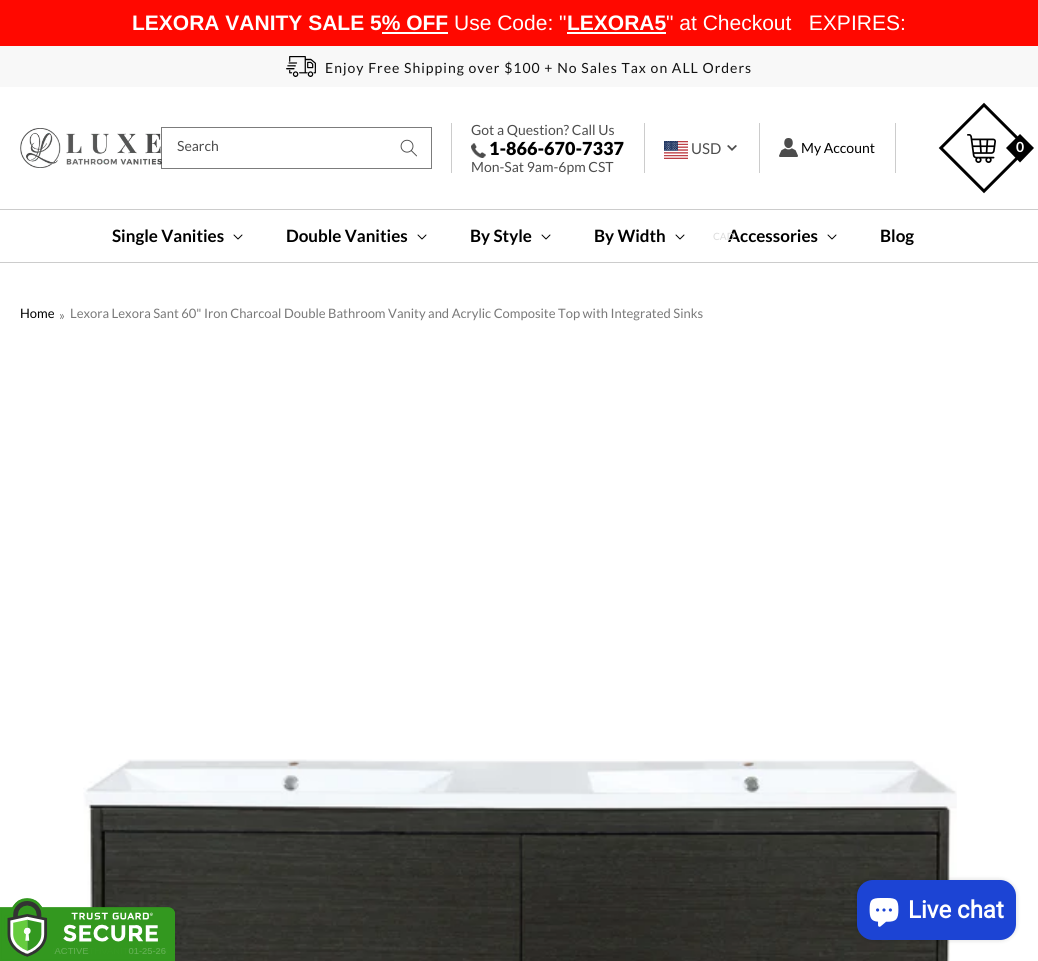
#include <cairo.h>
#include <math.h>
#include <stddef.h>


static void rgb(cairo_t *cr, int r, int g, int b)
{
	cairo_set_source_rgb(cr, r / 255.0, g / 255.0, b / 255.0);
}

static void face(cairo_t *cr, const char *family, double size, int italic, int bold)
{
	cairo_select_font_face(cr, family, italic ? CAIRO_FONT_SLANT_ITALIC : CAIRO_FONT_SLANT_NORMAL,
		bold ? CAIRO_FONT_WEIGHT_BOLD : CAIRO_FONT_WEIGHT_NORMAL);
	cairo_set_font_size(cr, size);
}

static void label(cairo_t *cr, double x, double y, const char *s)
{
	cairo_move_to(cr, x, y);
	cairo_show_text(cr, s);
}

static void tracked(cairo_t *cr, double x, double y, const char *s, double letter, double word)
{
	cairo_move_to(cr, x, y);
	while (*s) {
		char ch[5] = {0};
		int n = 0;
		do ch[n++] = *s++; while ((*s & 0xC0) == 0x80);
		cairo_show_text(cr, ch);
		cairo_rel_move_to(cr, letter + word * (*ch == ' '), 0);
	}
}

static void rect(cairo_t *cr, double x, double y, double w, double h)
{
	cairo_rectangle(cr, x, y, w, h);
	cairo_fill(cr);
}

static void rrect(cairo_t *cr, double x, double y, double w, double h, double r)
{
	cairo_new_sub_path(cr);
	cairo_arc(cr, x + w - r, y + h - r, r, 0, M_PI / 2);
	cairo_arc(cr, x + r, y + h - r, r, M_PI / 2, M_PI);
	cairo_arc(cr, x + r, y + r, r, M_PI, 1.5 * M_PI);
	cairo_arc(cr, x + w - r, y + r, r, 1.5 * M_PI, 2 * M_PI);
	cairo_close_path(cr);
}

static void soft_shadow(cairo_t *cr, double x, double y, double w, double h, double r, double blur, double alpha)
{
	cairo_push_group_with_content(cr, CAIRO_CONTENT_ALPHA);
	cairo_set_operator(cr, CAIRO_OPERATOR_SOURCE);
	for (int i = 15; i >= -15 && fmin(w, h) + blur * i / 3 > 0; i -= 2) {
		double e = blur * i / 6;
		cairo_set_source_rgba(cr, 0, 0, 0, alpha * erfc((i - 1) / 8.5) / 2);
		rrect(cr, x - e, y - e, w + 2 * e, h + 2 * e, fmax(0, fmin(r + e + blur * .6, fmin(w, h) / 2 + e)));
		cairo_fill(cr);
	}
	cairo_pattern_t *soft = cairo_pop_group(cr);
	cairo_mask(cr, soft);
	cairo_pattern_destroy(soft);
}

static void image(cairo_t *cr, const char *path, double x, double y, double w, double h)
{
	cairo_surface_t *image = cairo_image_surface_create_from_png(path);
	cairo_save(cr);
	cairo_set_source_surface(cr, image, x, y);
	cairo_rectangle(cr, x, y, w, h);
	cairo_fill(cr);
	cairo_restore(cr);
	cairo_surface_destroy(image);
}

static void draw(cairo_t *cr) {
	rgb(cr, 255, 255, 255);
	cairo_paint(cr);
	rgb(cr, 255, 8, 0);
	rect(cr, 0, 0, 1038, 46);
	face(cr, "Liberation Sans", 21, 0, 1);
	rgb(cr, 255, 255, 255);
	label(cr, 132, 30, "LEXORA VANITY SALE 5% OFF");
	rect(cr, 382, 32, 66, 2);
	face(cr, "Liberation Sans", 21, 0, 0);
	label(cr, 454, 30, "Use Code: \"");
	face(cr, "Liberation Sans", 21, 0, 1);
	label(cr, 567, 30, "LEXORA5");
	rect(cr, 567, 32, 99, 2);
	face(cr, "Liberation Sans", 21, 0, 0);
	label(cr, 666, 30, "\" at Checkout   EXPIRES:");
	rgb(cr, 248, 248, 248);
	rect(cr, 0, 46, 1038, 41);
	image(cr, "image0.png", 286, 56, 30, 21);
	face(cr, "Lato", 14, 0, 0);
	rgb(cr, 18, 18, 18);
	tracked(cr, 325, 73, "Enjoy Free Shipping over $100 + No Sales Tax on ALL Orders", 1, 0);
	image(cr, "image1.png", 20, 128, 142, 40);
	cairo_rectangle(cr, 161.5, 127.5, 270, 41);
	cairo_set_source_rgba(cr, 0.071, 0.071, 0.071, 0.55);
	cairo_set_line_width(cr, 1);
	cairo_stroke(cr);
	rgb(cr, 77, 77, 77);
	label(cr, 177, 151, "Search");
	image(cr, "image2.png", 400, 139, 17, 18);
	rgb(cr, 204, 204, 204);
	rect(cr, 451, 123, 1, 50);
	rgb(cr, 77, 77, 77);
	label(cr, 471, 135, "Got a Question? Call Us");
	image(cr, "image3.png", 471, 143, 15, 15);
	face(cr, "Lato Black", 18, 0, 0);
	rgb(cr, 0, 0, 0);
	label(cr, 489, 155, "1-866-670-7337");
	face(cr, "Lato", 14, 0, 0);
	rgb(cr, 77, 77, 77);
	label(cr, 471, 172, "Mon-Sat 9am-6pm CST");
	rgb(cr, 204, 204, 204);
	rect(cr, 644, 123, 1, 50);
	image(cr, "image4.png", 664, 141, 24, 18);
	face(cr, "Lato", 15, 0, 0);
	rgb(cr, 77, 77, 77);
	label(cr, 691, 154, "USD");
	cairo_new_path(cr);
	cairo_move_to(cr, 737, 146);
	cairo_line_to(cr, 732, 151);
	cairo_line_to(cr, 732, 148.5);
	cairo_line_to(cr, 735.5, 145);
	cairo_close_path(cr);
	cairo_move_to(cr, 732, 151);
	cairo_line_to(cr, 727, 146);
	cairo_line_to(cr, 728.5, 145);
	cairo_line_to(cr, 732, 148.5);
	cairo_close_path(cr);
	cairo_fill(cr);
	face(cr, "Lato", 17, 0, 1);
	rgb(cr, 0, 0, 0);
	label(cr, 728, 242, "Accessories");
	face(cr, "Lato", 10, 0, 0);
	rgb(cr, 220, 220, 220);
	label(cr, 713, 240, "CAD");
	rgb(cr, 204, 204, 204);
	rect(cr, 759, 123, 1, 50);
	image(cr, "image5.png", 779, 138, 19, 19);
	face(cr, "Lato", 14, 0, 0);
	rgb(cr, 0, 0, 0);
	label(cr, 801, 153, "My Account");
	rgb(cr, 204, 204, 204);
	rect(cr, 895, 123, 1, 50);
	image(cr, "image6.png", 938, 102, 80, 92);
	rgb(cr, 0, 0, 0);
	cairo_new_path(cr);
	cairo_move_to(cr, 1020, 134);
	cairo_line_to(cr, 1034, 148);
	cairo_line_to(cr, 1020, 162.5);
	cairo_line_to(cr, 1006, 148);
	cairo_close_path(cr);
	cairo_fill(cr);
	face(cr, "Lato", 14, 0, 1);
	rgb(cr, 255, 255, 255);
	label(cr, 1016, 152, "0");
	rgb(cr, 204, 204, 204);
	rect(cr, 0, 209, 1038, 1);
	rect(cr, 0, 262, 1038, 1);
	face(cr, "Lato", 17, 0, 1);
	rgb(cr, 0, 0, 0);
	label(cr, 112, 242, "Single Vanities");
	image(cr, "image7.png", 233, 234, 10, 6);
	label(cr, 286, 242, "Double Vanities");
	image(cr, "image7.png", 417, 234, 10, 6);
	label(cr, 470, 242, "By Style");
	image(cr, "image7.png", 541, 234, 10, 6);
	label(cr, 594, 242, "By Width");
	image(cr, "image7.png", 675, 234, 10, 6);
	image(cr, "image7.png", 827, 234, 10, 6);
	label(cr, 880, 242, "Blog");
	face(cr, "Lato", 13, 0, 0);
	label(cr, 20, 318, "Home");
	rgb(cr, 121, 121, 121);
	label(cr, 59, 320, "»");
	label(cr, 70, 318, "Lexora Lexora Sant 60\" Iron Charcoal Double Bathroom Vanity and Acrylic Composite Top with Integrated Sinks");
	image(cr, "image8.png", 83, 759, 874, 202);
	image(cr, "image9.png", 0, 898, 175, 63);
	rgb(cr, 0, 0, 0);
	soft_shadow(cr, 857, 880, 159, 60, 16, 2.5, 0.15);
	rgb(cr, 28, 68, 212);
	rrect(cr, 857, 880, 159, 60, 16);
	cairo_fill(cr);
	image(cr, "image10.png", 869, 898, 30, 29);
	face(cr, "Roboto", 24, 0, 1);
	rgb(cr, 255, 255, 255);
	label(cr, 908, 918, "Live chat");
}

int main(void) {
	cairo_surface_t *surface = cairo_image_surface_create(CAIRO_FORMAT_RGB24, 1038, 961);
	cairo_t *cr = cairo_create(surface);
	cairo_font_options_t *options = cairo_font_options_create();
	cairo_font_options_set_hint_metrics(options, CAIRO_HINT_METRICS_OFF);
	cairo_font_options_set_hint_style(options, CAIRO_HINT_STYLE_NONE);
	cairo_set_font_options(cr, options);
	cairo_set_miter_limit(cr, 4);
	draw(cr);
	cairo_surface_write_to_png(surface, "render.png");
	cairo_font_options_destroy(options);
	cairo_destroy(cr);
	cairo_surface_destroy(surface);
	return 0;
}
